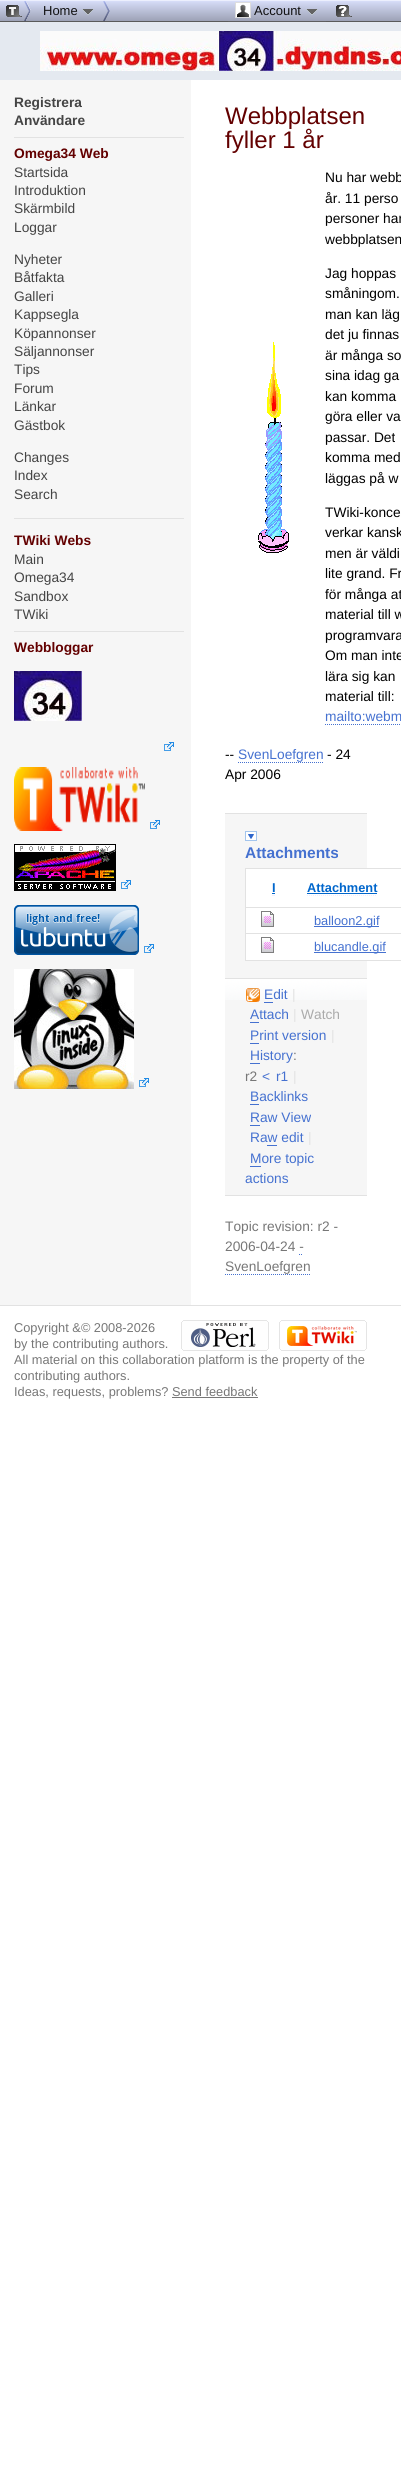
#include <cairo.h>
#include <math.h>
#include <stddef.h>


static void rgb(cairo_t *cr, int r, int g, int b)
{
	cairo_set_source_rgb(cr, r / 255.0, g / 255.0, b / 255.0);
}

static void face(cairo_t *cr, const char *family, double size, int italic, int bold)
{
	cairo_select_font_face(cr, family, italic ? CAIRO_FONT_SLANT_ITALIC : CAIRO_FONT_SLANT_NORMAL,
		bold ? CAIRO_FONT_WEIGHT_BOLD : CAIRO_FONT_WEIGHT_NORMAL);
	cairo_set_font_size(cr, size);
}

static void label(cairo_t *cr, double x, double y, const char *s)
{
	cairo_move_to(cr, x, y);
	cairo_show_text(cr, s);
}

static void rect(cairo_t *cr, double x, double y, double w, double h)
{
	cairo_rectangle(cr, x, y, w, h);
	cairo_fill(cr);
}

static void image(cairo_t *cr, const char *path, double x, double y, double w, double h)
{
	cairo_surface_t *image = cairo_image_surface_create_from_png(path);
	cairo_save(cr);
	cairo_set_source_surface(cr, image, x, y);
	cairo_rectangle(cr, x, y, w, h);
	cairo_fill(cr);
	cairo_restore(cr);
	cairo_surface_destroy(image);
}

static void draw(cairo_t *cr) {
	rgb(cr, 255, 255, 255);
	cairo_paint(cr);
	rgb(cr, 228, 233, 240);
	rect(cr, 0, 22, 401, 58);
	image(cr, "image0.png", 0, 0, 6, 22);
	image(cr, "image1.png", 6, 0, 395, 22);
	image(cr, "image2.png", 6, 1, 25, 20);
	face(cr, "Liberation Sans", 13, 0, 0);
	rgb(cr, 17, 17, 17);
	label(cr, 43, 15, "Home");
	image(cr, "image3.png", 82, 9, 12, 6);
	image(cr, "image4.png", 103, 1, 7, 20);
	rgb(cr, 94, 94, 95);
	rect(cr, 228, 21, 98, 1);
	image(cr, "image5.png", 235, 2, 16, 16);
	rgb(cr, 17, 17, 17);
	label(cr, 254, 15, "Account");
	image(cr, "image6.png", 306, 9, 12, 6);
	image(cr, "image7.png", 336, 5, 16, 12);
	image(cr, "image8.png", 40, 31, 361, 40);
	rgb(cr, 246, 246, 246);
	rect(cr, 0, 80, 191, 1225);
	face(cr, "Liberation Sans", 13.75, 0, 1);
	rgb(cr, 68, 68, 68);
	label(cr, 14, 107, "Registrera");
	label(cr, 14, 125, "Användare");
	rgb(cr, 226, 226, 226);
	rect(cr, 14, 137, 170, 1);
	rgb(cr, 99, 0, 0);
	label(cr, 14, 158, "Omega34 Web");
	face(cr, "Liberation Sans", 13.75, 0, 0);
	rgb(cr, 68, 68, 68);
	label(cr, 14, 177, "Startsida");
	label(cr, 14, 195, "Introduktion");
	label(cr, 14, 213, "Skärmbild");
	label(cr, 14, 232, "Loggar");
	label(cr, 14, 264, "Nyheter");
	label(cr, 14, 282, "Båtfakta");
	label(cr, 14, 301, "Galleri");
	label(cr, 14, 319, "Kappsegla");
	label(cr, 14, 338, "Köpannonser");
	label(cr, 14, 356, "Säljannonser");
	label(cr, 14, 374, "Tips");
	label(cr, 14, 393, "Forum");
	label(cr, 14, 411, "Länkar");
	label(cr, 14, 430, "Gästbok");
	label(cr, 14, 462, "Changes");
	label(cr, 14, 480, "Index");
	label(cr, 14, 499, "Search");
	rgb(cr, 226, 226, 226);
	rect(cr, 14, 518, 170, 1);
	face(cr, "Liberation Sans", 13.75, 0, 1);
	rgb(cr, 99, 0, 0);
	label(cr, 14, 545, "TWiki Webs");
	face(cr, "Liberation Sans", 13.75, 0, 0);
	rgb(cr, 68, 68, 68);
	label(cr, 14, 564, "Main");
	label(cr, 14, 582, "Omega34");
	label(cr, 14, 601, "Sandbox");
	label(cr, 14, 619, "TWiki");
	rgb(cr, 226, 226, 226);
	rect(cr, 14, 631, 170, 1);
	face(cr, "Liberation Sans", 13.75, 0, 1);
	rgb(cr, 99, 0, 0);
	label(cr, 14, 652, "Webbloggar");
	image(cr, "image9.png", 14, 671, 68, 50);
	image(cr, "image10.png", 164, 742, 10, 9);
	image(cr, "image11.png", 14, 767, 131, 64);
	image(cr, "image10.png", 150, 820, 10, 9);
	image(cr, "image12.png", 14, 844, 102, 47);
	image(cr, "image10.png", 121, 880, 10, 9);
	image(cr, "image13.png", 14, 905, 125, 50);
	image(cr, "image10.png", 144, 944, 10, 9);
	image(cr, "image14.png", 14, 969, 120, 120);
	image(cr, "image10.png", 139, 1078, 10, 9);
	face(cr, "Liberation Sans", 24, 0, 0);
	label(cr, 225, 124, "Webbplatsen");
	label(cr, 225, 148, "fyller 1 år");
	image(cr, "image15.png", 258, 342, 31, 211);
	face(cr, "Liberation Sans", 13.75, 0, 0);
	rgb(cr, 0, 0, 0);
	label(cr, 325, 182, "Nu har webb");
	label(cr, 325, 203, "år. 11 perso");
	label(cr, 325, 223, "personer har");
	label(cr, 325, 244, "webbplatsen");
	label(cr, 325, 278, "Jag hoppas");
	label(cr, 325, 298, "småningom.");
	label(cr, 325, 319, "man kan läg");
	label(cr, 325, 339, "det ju finnas");
	label(cr, 325, 360, "är många so");
	label(cr, 325, 380, "sina idag ga");
	label(cr, 325, 401, "kan komma");
	label(cr, 325, 421, "göra eller va");
	label(cr, 325, 442, "passar. Det");
	label(cr, 325, 462, "komma med");
	label(cr, 325, 483, "läggas på w");
	label(cr, 325, 517, "TWiki-konce");
	label(cr, 325, 537, "verkar kansk");
	label(cr, 325, 558, "men är väldi");
	label(cr, 325, 578, "lite grand. Fr");
	label(cr, 325, 599, "för många at");
	label(cr, 325, 619, "material till w");
	label(cr, 325, 640, "programvara");
	label(cr, 325, 660, "Om man inte");
	label(cr, 325, 681, "lära sig kan");
	label(cr, 325, 701, "material till:");
	rgb(cr, 69, 113, 208);
	label(cr, 325, 721, "mailto:webm");
	cairo_new_path(cr);
	cairo_move_to(cr, 325, 724.5);
	cairo_line_to(cr, 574, 724.5);
	cairo_set_line_width(cr, 1);
	cairo_set_dash(cr, (double[]){1, 1}, 2, 0);
	cairo_stroke(cr);
	rgb(cr, 0, 0, 0);
	label(cr, 225, 759, "--");
	rgb(cr, 69, 113, 208);
	label(cr, 238, 759, "SvenLoefgren");
	cairo_new_path(cr);
	cairo_move_to(cr, 238, 762.5);
	cairo_line_to(cr, 323, 762.5);
	cairo_stroke(cr);
	rgb(cr, 0, 0, 0);
	label(cr, 327, 759, "- 24");
	label(cr, 225, 779, "Apr 2006");
	rgb(cr, 246, 246, 246);
	rect(cr, 225, 814, 142, 164);
	rgb(cr, 226, 226, 226);
	rect(cr, 225, 813, 142, 1);
	image(cr, "image16.png", 245, 831, 12, 10);
	face(cr, "Liberation Sans", 15.5, 0, 1);
	rgb(cr, 69, 113, 208);
	label(cr, 245, 858, "Attachments");
	rgb(cr, 255, 255, 255);
	rect(cr, 246, 869, 121, 91);
	rgb(cr, 226, 226, 226);
	rect(cr, 245, 868, 156, 1);
	rect(cr, 245, 960, 156, 1);
	rect(cr, 245, 868, 1, 93);
	face(cr, "Liberation Sans", 12.8, 0, 1);
	rgb(cr, 0, 102, 204);
	label(cr, 272, 892, "I");
	rgb(cr, 238, 238, 255);
	rect(cr, 272, 895, 3, 1);
	rgb(cr, 0, 102, 204);
	rect(cr, 272, 893, 3, 1);
	label(cr, 307, 892, "Attachment");
	cairo_new_path(cr);
	cairo_move_to(cr, 307, 895.5);
	cairo_line_to(cr, 377, 895.5);
	rgb(cr, 238, 238, 255);
	cairo_stroke(cr);
	rgb(cr, 0, 102, 204);
	rect(cr, 307, 893, 70, 1);
	image(cr, "image17.png", 261, 911, 13, 16);
	rgb(cr, 226, 226, 226);
	rect(cr, 245, 907, 156, 1);
	rgb(cr, 69, 113, 208);
	rect(cr, 314, 926, 65, 1);
	face(cr, "Liberation Sans", 12.8, 0, 0);
	label(cr, 314, 925, "balloon2.gif");
	image(cr, "image17.png", 261, 937, 13, 16);
	rgb(cr, 226, 226, 226);
	rect(cr, 245, 933, 156, 1);
	rgb(cr, 69, 113, 208);
	rect(cr, 314, 952, 72, 1);
	label(cr, 314, 951, "blucandle.gif");
	rgb(cr, 246, 246, 246);
	rect(cr, 225, 1000, 142, 195);
	rgb(cr, 226, 226, 226);
	rect(cr, 225, 1195, 142, 1);
	image(cr, "image18.png", 225, 979, 142, 21);
	rect(cr, 225, 978, 142, 1);
	image(cr, "image19.png", 246, 988, 14, 14);
	face(cr, "Liberation Sans", 13.75, 0, 0);
	rgb(cr, 69, 113, 208);
	label(cr, 264, 999, "Edit");
	rect(cr, 264, 1002, 9, 1);
	rgb(cr, 226, 226, 226);
	label(cr, 292, 999, "|");
	rgb(cr, 69, 113, 208);
	label(cr, 250, 1019, "Attach");
	rect(cr, 250, 1022, 9, 1);
	rgb(cr, 226, 226, 226);
	label(cr, 293, 1019, "|");
	rgb(cr, 170, 170, 170);
	label(cr, 301, 1019, "Watch");
	rgb(cr, 69, 113, 208);
	label(cr, 250, 1040, "Print version");
	rect(cr, 250, 1043, 9, 1);
	rgb(cr, 226, 226, 226);
	label(cr, 331, 1040, "|");
	rgb(cr, 69, 113, 208);
	label(cr, 250, 1060, "History");
	rect(cr, 250, 1063, 10, 1);
	rgb(cr, 119, 119, 119);
	label(cr, 293, 1060, ":");
	label(cr, 245, 1081, "r2");
	rgb(cr, 69, 113, 208);
	label(cr, 262, 1081, "<");
	label(cr, 276, 1081, "r1");
	rgb(cr, 226, 226, 226);
	label(cr, 293, 1081, "|");
	rgb(cr, 69, 113, 208);
	label(cr, 250, 1101, "Backlinks");
	rect(cr, 250, 1104, 9, 1);
	label(cr, 250, 1122, "Raw View");
	rect(cr, 250, 1125, 10, 1);
	label(cr, 250, 1142, "Raw edit");
	rect(cr, 267, 1145, 10, 1);
	rgb(cr, 226, 226, 226);
	label(cr, 308, 1142, "|");
	rgb(cr, 69, 113, 208);
	label(cr, 250, 1163, "More topic");
	rect(cr, 250, 1166, 11, 1);
	label(cr, 245, 1183, "actions");
	rgb(cr, 119, 119, 119);
	label(cr, 225, 1231, "Topic revision: r2 -");
	label(cr, 225, 1251, "2006-04-24 -");
	cairo_new_path(cr);
	cairo_move_to(cr, 299, 1254.5);
	cairo_line_to(cr, 300, 1254.5);
	cairo_move_to(cr, 301, 1254.5);
	cairo_line_to(cr, 302, 1254.5);
	rgb(cr, 69, 113, 208);
	cairo_set_dash(cr, NULL, 0, 0);
	cairo_stroke(cr);
	rgb(cr, 119, 119, 119);
	label(cr, 225, 1271, "SvenLoefgren");
	cairo_new_path(cr);
	cairo_move_to(cr, 225, 1274.5);
	cairo_line_to(cr, 310, 1274.5);
	rgb(cr, 69, 113, 208);
	cairo_set_dash(cr, (double[]){1, 1}, 2, 0);
	cairo_stroke(cr);
	rgb(cr, 226, 226, 226);
	rect(cr, 0, 1305, 401, 1);
	face(cr, "Liberation Sans", 12.8, 0, 0);
	rgb(cr, 119, 119, 119);
	label(cr, 14, 1332, "Copyright &© 2008-2026");
	image(cr, "image20.png", 181, 1320, 88, 31);
	image(cr, "image21.png", 279, 1320, 88, 31);
	label(cr, 14, 1348, "by the contributing authors.");
	label(cr, 14, 1364, "All material on this collaboration platform is the property of the");
	label(cr, 14, 1380, "contributing authors.");
	label(cr, 14, 1396, "Ideas, requests, problems? Send feedback");
	rect(cr, 172, 1397, 86, 1);
}

int main(void) {
	cairo_surface_t *surface = cairo_image_surface_create(CAIRO_FORMAT_RGB24, 401, 2492);
	cairo_t *cr = cairo_create(surface);
	cairo_font_options_t *options = cairo_font_options_create();
	cairo_font_options_set_hint_metrics(options, CAIRO_HINT_METRICS_OFF);
	cairo_font_options_set_hint_style(options, CAIRO_HINT_STYLE_NONE);
	cairo_set_font_options(cr, options);
	cairo_set_miter_limit(cr, 4);
	draw(cr);
	cairo_surface_write_to_png(surface, "render.png");
	cairo_font_options_destroy(options);
	cairo_destroy(cr);
	cairo_surface_destroy(surface);
	return 0;
}
